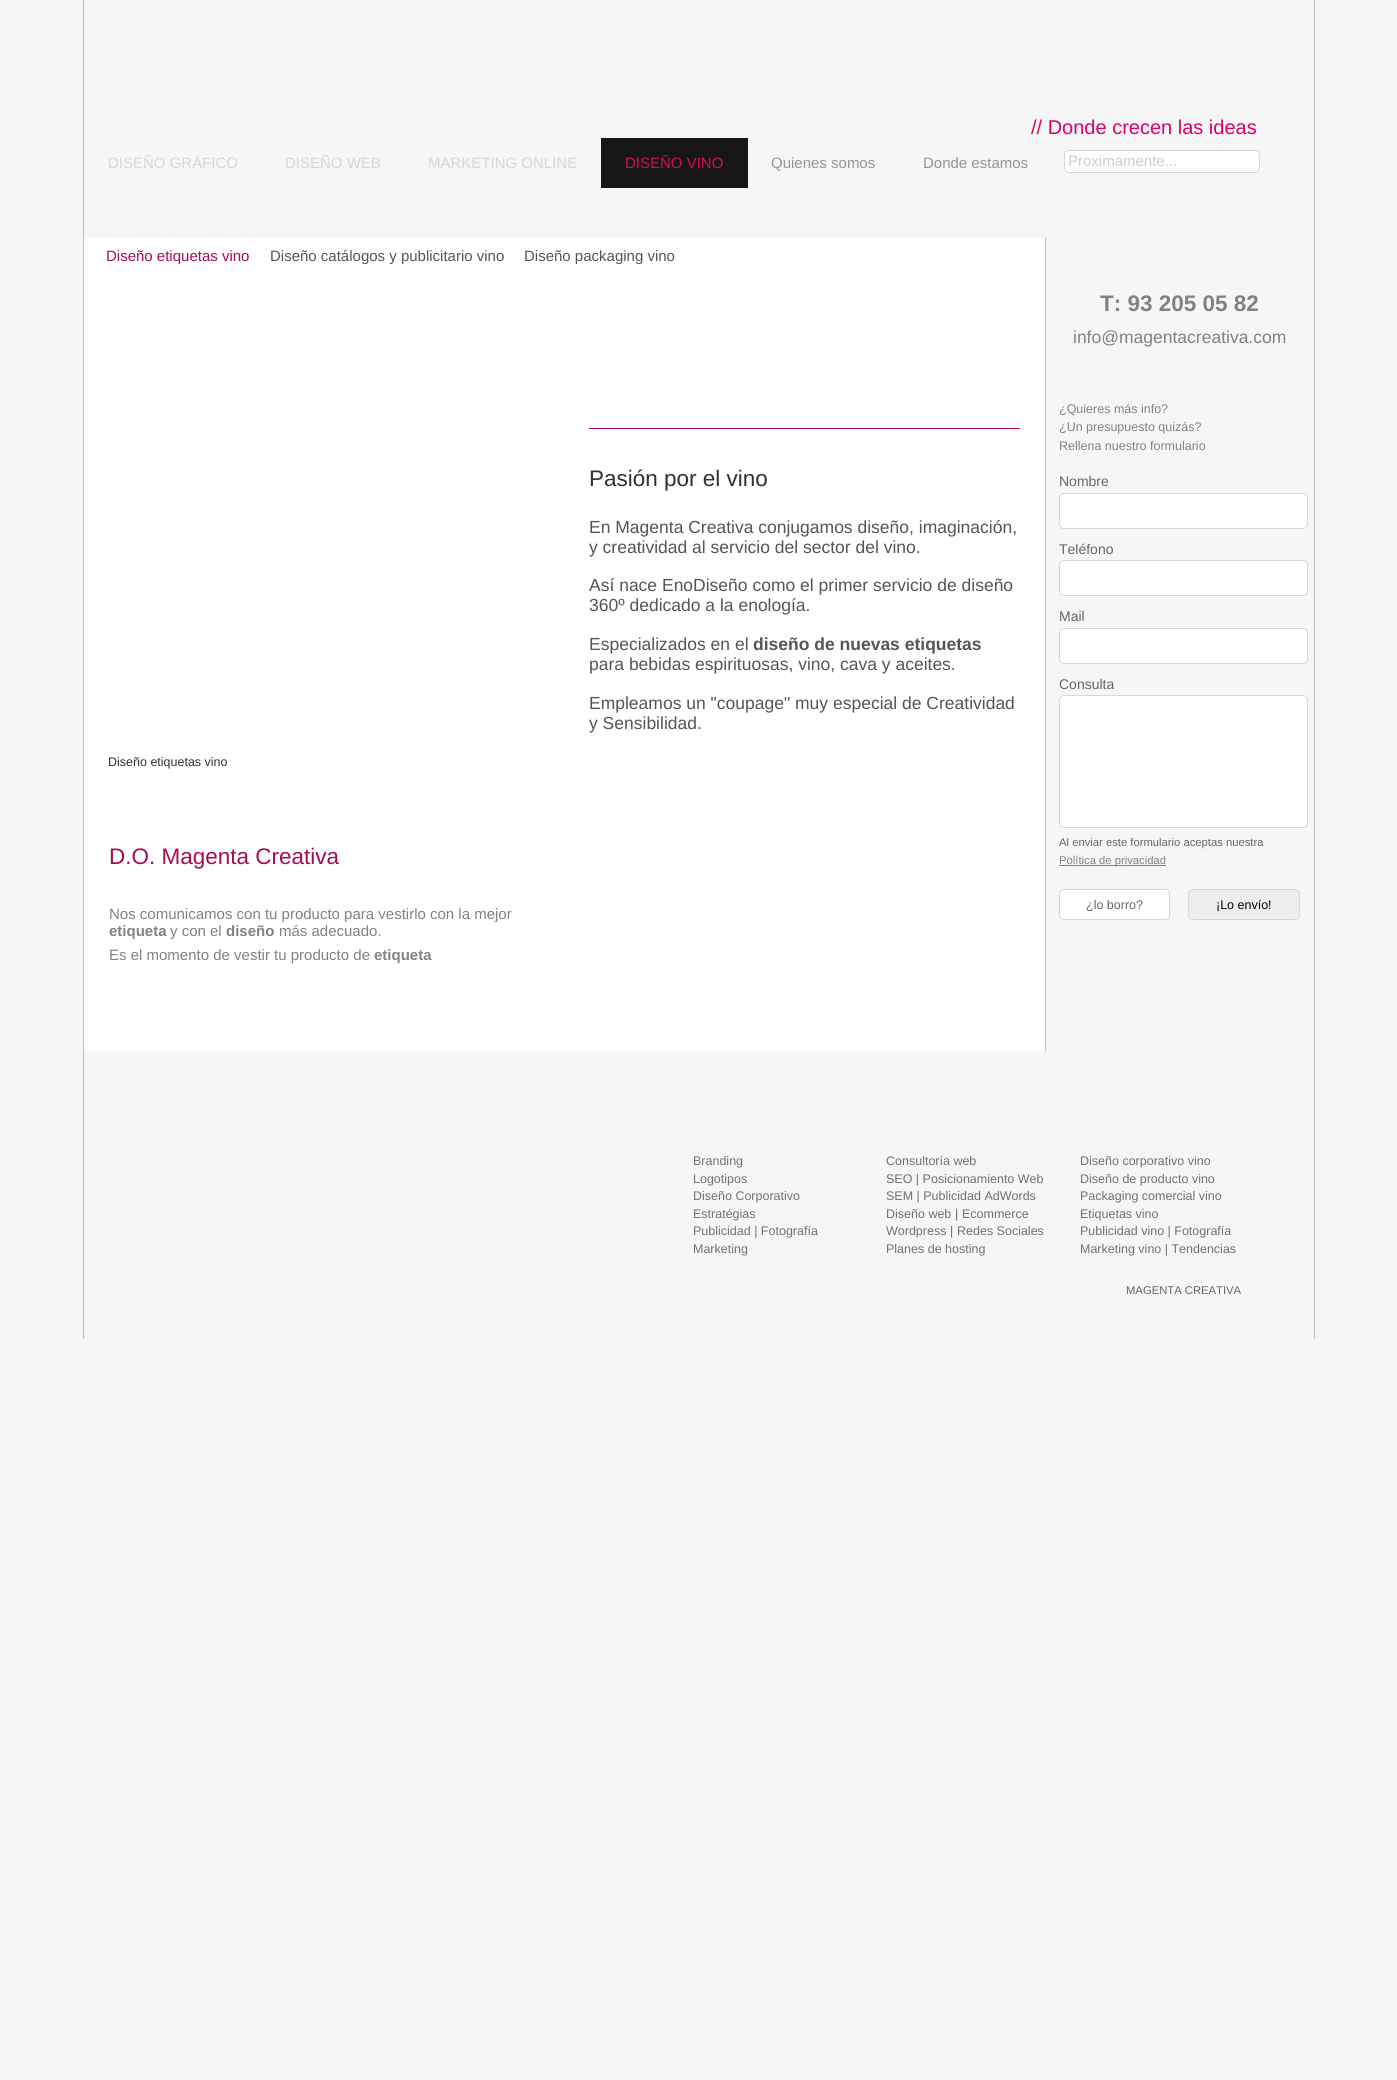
#include <cairo.h>
#include <math.h>
#include <stddef.h>


static void rgb(cairo_t *cr, int r, int g, int b)
{
	cairo_set_source_rgb(cr, r / 255.0, g / 255.0, b / 255.0);
}

static void face(cairo_t *cr, const char *family, double size, int italic, int bold)
{
	cairo_select_font_face(cr, family, italic ? CAIRO_FONT_SLANT_ITALIC : CAIRO_FONT_SLANT_NORMAL,
		bold ? CAIRO_FONT_WEIGHT_BOLD : CAIRO_FONT_WEIGHT_NORMAL);
	cairo_set_font_size(cr, size);
}

static void label(cairo_t *cr, double x, double y, const char *s)
{
	cairo_move_to(cr, x, y);
	cairo_show_text(cr, s);
}

static void rect(cairo_t *cr, double x, double y, double w, double h)
{
	cairo_rectangle(cr, x, y, w, h);
	cairo_fill(cr);
}

static void rrect(cairo_t *cr, double x, double y, double w, double h, double r)
{
	cairo_new_sub_path(cr);
	cairo_arc(cr, x + w - r, y + h - r, r, 0, M_PI / 2);
	cairo_arc(cr, x + r, y + h - r, r, M_PI / 2, M_PI);
	cairo_arc(cr, x + r, y + r, r, M_PI, 1.5 * M_PI);
	cairo_arc(cr, x + w - r, y + r, r, 1.5 * M_PI, 2 * M_PI);
	cairo_close_path(cr);
}

static void draw(cairo_t *cr) {
	rgb(cr, 246, 246, 246);
	cairo_paint(cr);
	rgb(cr, 188, 190, 192);
	rect(cr, 1314, 0, 1, 1339);
	rect(cr, 83, 0, 1, 1339);
	face(cr, "Liberation Sans", 20, 0, 0);
	rgb(cr, 221, 0, 103);
	label(cr, 1031, 134, "// Donde crecen las ideas");
	face(cr, "Liberation Sans", 15, 0, 0);
	rgb(cr, 213, 215, 216);
	label(cr, 108, 168, "DISEÑO GRÁFICO");
	label(cr, 285, 168, "DISEÑO WEB");
	label(cr, 428, 168, "MARKETING ONLINE");
	rgb(cr, 22, 22, 22);
	rect(cr, 601, 138, 147, 50);
	rgb(cr, 213, 13, 84);
	label(cr, 625, 168, "DISEÑO VINO");
	rgb(cr, 147, 149, 152);
	label(cr, 771, 168, "Quienes somos");
	label(cr, 923, 168, "Donde estamos");
	rgb(cr, 255, 255, 255);
	rrect(cr, 1064.5, 150.5, 195, 22, 4.5);
	cairo_fill_preserve(cr);
	rgb(cr, 213, 215, 216);
	cairo_set_line_width(cr, 1);
	cairo_stroke(cr);
	rgb(cr, 204, 204, 204);
	label(cr, 1068, 166, "Proximamente...");
	rgb(cr, 255, 255, 255);
	rect(cr, 84, 238, 961, 813);
	rgb(cr, 168, 10, 85);
	label(cr, 106, 261, "Diseño etiquetas vino");
	rgb(cr, 84, 85, 87);
	label(cr, 270, 261, "Diseño catálogos y publicitario vino");
	label(cr, 524, 261, "Diseño packaging vino");
	rgb(cr, 188, 190, 192);
	rect(cr, 1045, 238, 1, 813);
	rgb(cr, 168, 10, 85);
	rect(cr, 589, 428, 431, 1);
	face(cr, "Liberation Sans", 22.5, 0, 0);
	rgb(cr, 46, 50, 44);
	label(cr, 589, 486, "Pasión por el vino");
	face(cr, "Liberation Sans", 17.5, 0, 0);
	rgb(cr, 84, 85, 87);
	label(cr, 589, 533, "En Magenta Creativa conjugamos diseño, imaginación,");
	label(cr, 589, 553, "y creatividad al servicio del sector del vino.");
	label(cr, 589, 591, "Así nace EnoDiseño como el primer servicio de diseño");
	label(cr, 589, 611, "360º dedicado a la enología.");
	label(cr, 589, 650, "Especializados en el");
	face(cr, "Liberation Sans", 17.5, 0, 1);
	label(cr, 753, 650, "diseño de nuevas etiquetas");
	face(cr, "Liberation Sans", 17.5, 0, 0);
	label(cr, 589, 670, "para bebidas espirituosas, vino, cava y aceites.");
	label(cr, 589, 709, "Empleamos un \"coupage\" muy especial de Creatividad");
	label(cr, 589, 729, "y Sensibilidad.");
	face(cr, "Liberation Sans", 12.5, 0, 0);
	rgb(cr, 46, 50, 44);
	label(cr, 108, 766, "Diseño etiquetas vino");
	face(cr, "Liberation Sans", 22.5, 0, 0);
	rgb(cr, 168, 10, 85);
	label(cr, 109, 864, "D.O. Magenta Creativa");
	face(cr, "Liberation Sans", 15, 0, 0);
	rgb(cr, 128, 130, 133);
	label(cr, 109, 919, "Nos comunicamos con tu producto para vestirlo con la mejor");
	face(cr, "Liberation Sans", 15, 0, 1);
	label(cr, 109, 936, "etiqueta");
	face(cr, "Liberation Sans", 15, 0, 0);
	label(cr, 170, 936, "y con el");
	face(cr, "Liberation Sans", 15, 0, 1);
	label(cr, 226, 936, "diseño");
	face(cr, "Liberation Sans", 15, 0, 0);
	label(cr, 279, 936, "más adecuado.");
	label(cr, 109, 960, "Es el momento de vestir tu producto de");
	face(cr, "Liberation Sans", 15, 0, 1);
	label(cr, 374, 960, "etiqueta");
	face(cr, "Liberation Sans", 22.5, 0, 1);
	label(cr, 1100, 311, "T: 93 205 05 82");
	face(cr, "Liberation Sans", 17.5, 0, 0);
	label(cr, 1073, 343, "info@magentacreativa.com");
	face(cr, "Liberation Sans", 12.5, 0, 0);
	label(cr, 1059, 413, "¿Quieres más info?");
	label(cr, 1059, 431, "¿Un presupuesto quizás?");
	label(cr, 1059, 450, "Rellena nuestro formulario");
	face(cr, "Liberation Sans", 14, 0, 0);
	rgb(cr, 102, 102, 102);
	label(cr, 1059, 486, "Nombre");
	rgb(cr, 255, 255, 255);
	rrect(cr, 1059.5, 493.5, 248, 35, 4.5);
	cairo_fill_preserve(cr);
	rgb(cr, 213, 215, 216);
	cairo_stroke(cr);
	rgb(cr, 102, 102, 102);
	label(cr, 1059, 554, "Teléfono");
	rgb(cr, 255, 255, 255);
	rrect(cr, 1059.5, 560.5, 248, 35, 4.5);
	cairo_fill_preserve(cr);
	rgb(cr, 213, 215, 216);
	cairo_stroke(cr);
	rgb(cr, 102, 102, 102);
	label(cr, 1059, 621, "Mail");
	rgb(cr, 255, 255, 255);
	rrect(cr, 1059.5, 628.5, 248, 35, 4.5);
	cairo_fill_preserve(cr);
	rgb(cr, 213, 215, 216);
	cairo_stroke(cr);
	rgb(cr, 102, 102, 102);
	label(cr, 1059, 689, "Consulta");
	rgb(cr, 255, 255, 255);
	rrect(cr, 1059.5, 695.5, 248, 132, 4.5);
	cairo_fill_preserve(cr);
	rgb(cr, 213, 215, 216);
	cairo_stroke(cr);
	face(cr, "Liberation Sans", 11.25, 0, 0);
	rgb(cr, 102, 102, 102);
	label(cr, 1059, 846, "Al enviar este formulario aceptas nuestra");
	rgb(cr, 128, 130, 133);
	rect(cr, 1059, 865, 107, 1);
	label(cr, 1059, 864, "Política de privacidad");
	rgb(cr, 255, 255, 255);
	rrect(cr, 1059.5, 889.5, 110, 30, 4.5);
	cairo_fill_preserve(cr);
	rgb(cr, 213, 215, 216);
	cairo_stroke(cr);
	face(cr, "Liberation Sans", 12.5, 0, 0);
	rgb(cr, 102, 102, 102);
	label(cr, 1086, 909, "¿lo borro?");
	rgb(cr, 238, 238, 238);
	rrect(cr, 1188.5, 889.5, 111, 30, 4.5);
	cairo_fill_preserve(cr);
	rgb(cr, 213, 215, 216);
	cairo_stroke(cr);
	rgb(cr, 0, 0, 0);
	label(cr, 1216, 909, "¡Lo envío!");
	rgb(cr, 113, 113, 113);
	label(cr, 693, 1165, "Branding");
	label(cr, 693, 1183, "Logotipos");
	label(cr, 693, 1200, "Diseño Corporativo");
	label(cr, 693, 1218, "Estratégias");
	label(cr, 693, 1235, "Publicidad | Fotografía");
	label(cr, 693, 1253, "Marketing");
	label(cr, 886, 1165, "Consultoría web");
	label(cr, 886, 1183, "SEO | Posicionamiento Web");
	label(cr, 886, 1200, "SEM | Publicidad AdWords");
	label(cr, 886, 1218, "Diseño web");
	rgb(cr, 102, 102, 102);
	label(cr, 955, 1218, "|");
	rgb(cr, 113, 113, 113);
	label(cr, 962, 1218, "Ecommerce");
	label(cr, 886, 1235, "Wordpress");
	rgb(cr, 102, 102, 102);
	label(cr, 950, 1235, "|");
	rgb(cr, 113, 113, 113);
	label(cr, 957, 1235, "Redes Sociales");
	label(cr, 886, 1253, "Planes de hosting");
	label(cr, 1080, 1165, "Diseño corporativo vino");
	label(cr, 1080, 1183, "Diseño de producto vino");
	label(cr, 1080, 1200, "Packaging comercial vino");
	label(cr, 1080, 1218, "Etiquetas vino");
	label(cr, 1080, 1235, "Publicidad vino | Fotografía");
	label(cr, 1080, 1253, "Marketing vino | Tendencias");
	face(cr, "Liberation Sans", 11.25, 0, 0);
	rgb(cr, 102, 102, 102);
	label(cr, 1126, 1294, "MAGENTA CREATIVA");
}

int main(void) {
	cairo_surface_t *surface = cairo_image_surface_create(CAIRO_FORMAT_RGB24, 1397, 2080);
	cairo_t *cr = cairo_create(surface);
	cairo_font_options_t *options = cairo_font_options_create();
	cairo_font_options_set_hint_metrics(options, CAIRO_HINT_METRICS_OFF);
	cairo_font_options_set_hint_style(options, CAIRO_HINT_STYLE_NONE);
	cairo_set_font_options(cr, options);
	cairo_set_miter_limit(cr, 4);
	draw(cr);
	cairo_surface_write_to_png(surface, "render.png");
	cairo_font_options_destroy(options);
	cairo_destroy(cr);
	cairo_surface_destroy(surface);
	return 0;
}
